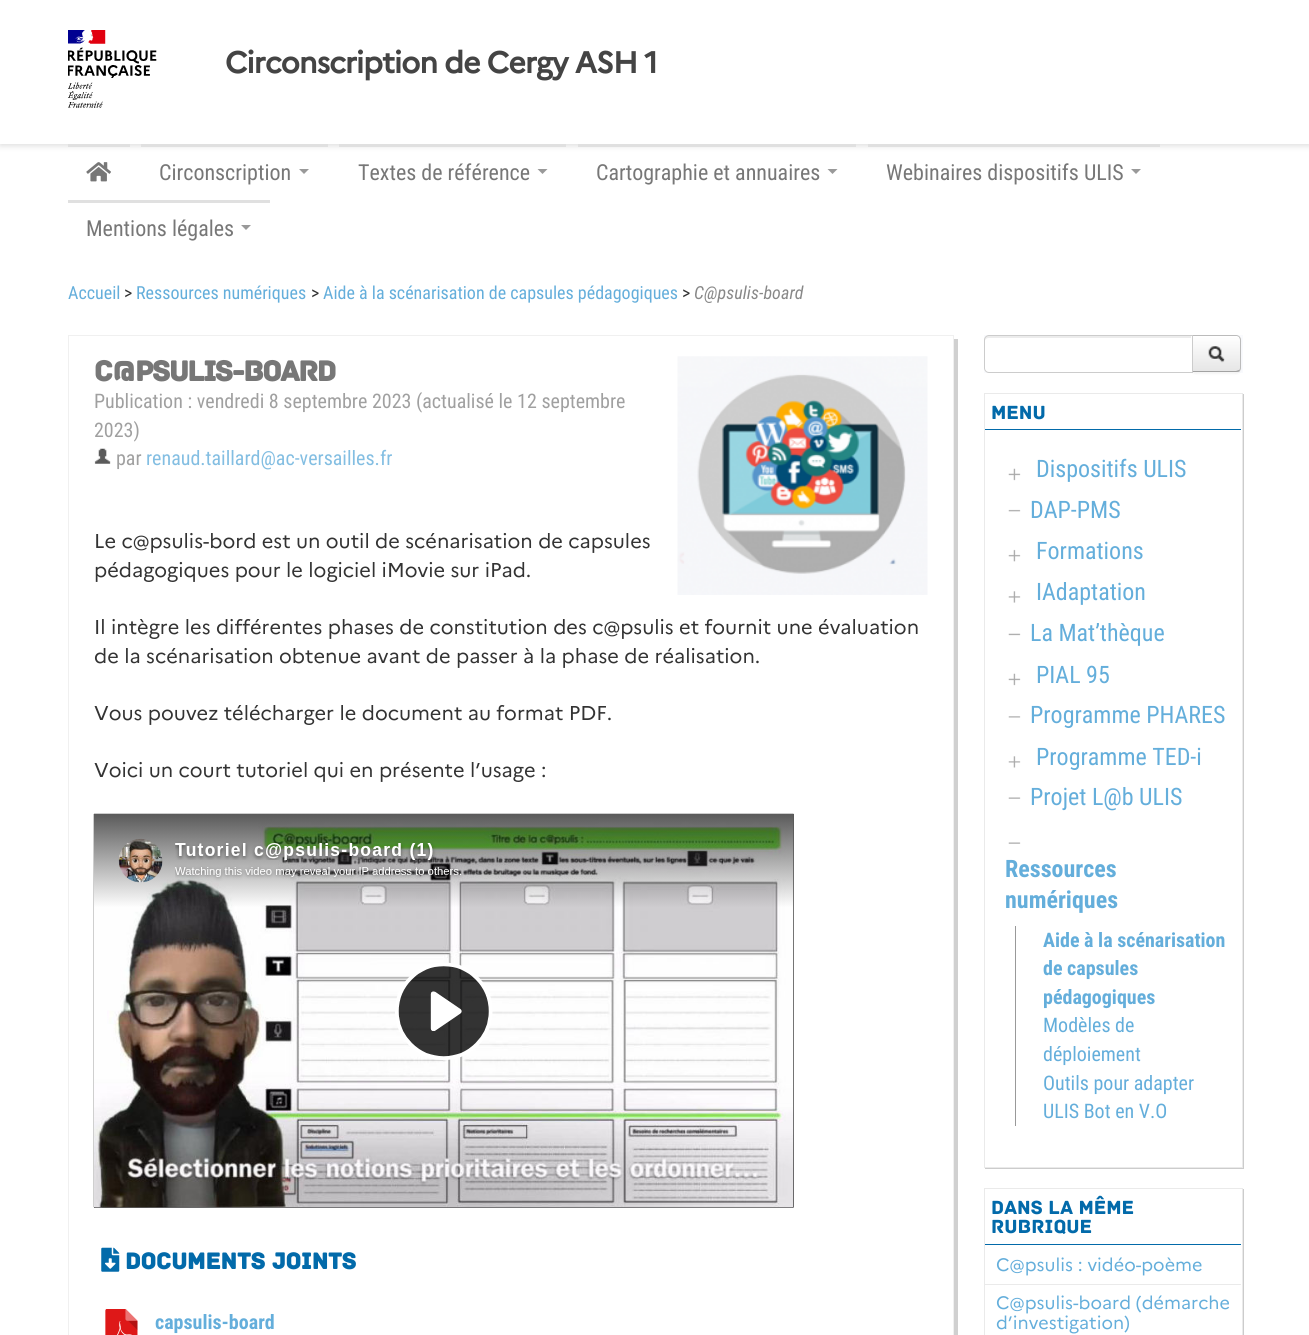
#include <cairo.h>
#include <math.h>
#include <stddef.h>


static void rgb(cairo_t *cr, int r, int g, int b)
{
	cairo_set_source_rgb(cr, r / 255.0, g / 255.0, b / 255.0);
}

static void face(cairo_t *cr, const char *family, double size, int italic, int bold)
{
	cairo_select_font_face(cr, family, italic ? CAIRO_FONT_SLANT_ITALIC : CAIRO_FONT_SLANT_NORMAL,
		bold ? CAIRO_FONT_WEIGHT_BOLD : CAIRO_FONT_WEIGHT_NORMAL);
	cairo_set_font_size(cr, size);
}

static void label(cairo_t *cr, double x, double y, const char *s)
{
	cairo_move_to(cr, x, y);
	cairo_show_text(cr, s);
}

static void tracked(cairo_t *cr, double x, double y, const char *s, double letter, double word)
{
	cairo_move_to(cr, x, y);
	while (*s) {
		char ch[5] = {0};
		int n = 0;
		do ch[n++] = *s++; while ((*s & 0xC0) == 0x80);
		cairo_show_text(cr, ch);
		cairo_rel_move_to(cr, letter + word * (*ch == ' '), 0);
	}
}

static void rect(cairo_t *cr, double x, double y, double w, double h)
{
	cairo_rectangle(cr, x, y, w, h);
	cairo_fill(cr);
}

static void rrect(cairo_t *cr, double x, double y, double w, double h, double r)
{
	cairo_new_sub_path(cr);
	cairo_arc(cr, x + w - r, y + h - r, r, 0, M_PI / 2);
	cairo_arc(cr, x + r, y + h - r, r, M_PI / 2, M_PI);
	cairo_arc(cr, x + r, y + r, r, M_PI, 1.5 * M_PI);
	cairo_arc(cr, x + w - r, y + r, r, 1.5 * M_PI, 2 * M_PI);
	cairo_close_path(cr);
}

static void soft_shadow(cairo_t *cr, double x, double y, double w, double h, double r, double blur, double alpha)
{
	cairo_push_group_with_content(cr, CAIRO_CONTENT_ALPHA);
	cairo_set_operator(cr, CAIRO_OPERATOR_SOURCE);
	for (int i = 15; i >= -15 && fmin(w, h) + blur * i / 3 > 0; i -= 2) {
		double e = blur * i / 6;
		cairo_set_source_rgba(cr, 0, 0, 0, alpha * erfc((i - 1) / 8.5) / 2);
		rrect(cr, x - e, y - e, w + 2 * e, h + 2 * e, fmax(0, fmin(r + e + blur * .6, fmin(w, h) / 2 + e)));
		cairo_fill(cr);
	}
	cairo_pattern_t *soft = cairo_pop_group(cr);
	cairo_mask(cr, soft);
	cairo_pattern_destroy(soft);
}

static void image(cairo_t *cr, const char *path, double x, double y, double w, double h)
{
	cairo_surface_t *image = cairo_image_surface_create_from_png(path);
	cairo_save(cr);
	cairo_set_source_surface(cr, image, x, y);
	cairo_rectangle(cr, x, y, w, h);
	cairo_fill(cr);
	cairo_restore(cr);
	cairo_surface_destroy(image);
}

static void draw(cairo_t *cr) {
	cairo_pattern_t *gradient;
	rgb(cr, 255, 255, 255);
	cairo_paint(cr);
	rgb(cr, 224, 224, 224);
	soft_shadow(cr, 0, 3, 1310, 143, 0, 3, 1);
	rgb(cr, 255, 255, 255);
	rect(cr, 0, 0, 1309, 144);
	image(cr, "image0.png", 68, 30, 89, 78);
	face(cr, "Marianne", 30, 0, 1);
	rgb(cr, 68, 68, 68);
	tracked(cr, 225, 73, "Circonscription de Cergy ASH 1", -0.9, 0);
	rgb(cr, 224, 224, 224);
	rect(cr, 68, 144, 62, 3);
	image(cr, "image1.png", 86, 162, 25, 20);
	rect(cr, 141, 144, 187, 3);
	face(cr, "Roboto Condensed", 22, 0, 0);
	rgb(cr, 119, 119, 119);
	label(cr, 159, 180, "Circonscription");
	rgb(cr, 153, 153, 153);
	cairo_new_path(cr);
	cairo_move_to(cr, 299, 169);
	cairo_line_to(cr, 309, 169);
	cairo_line_to(cr, 304, 174);
	cairo_close_path(cr);
	cairo_fill(cr);
	rgb(cr, 224, 224, 224);
	rect(cr, 339, 144, 227, 3);
	rgb(cr, 119, 119, 119);
	label(cr, 358, 180, "Textes de référence");
	rgb(cr, 153, 153, 153);
	cairo_new_path(cr);
	cairo_move_to(cr, 537.5, 169);
	cairo_line_to(cr, 547.5, 169);
	cairo_line_to(cr, 542.5, 174);
	cairo_close_path(cr);
	cairo_fill(cr);
	rgb(cr, 224, 224, 224);
	rect(cr, 578, 144, 278, 3);
	rgb(cr, 119, 119, 119);
	label(cr, 596, 180, "Cartographie et annuaires");
	rgb(cr, 153, 153, 153);
	cairo_new_path(cr);
	cairo_move_to(cr, 827.5, 169);
	cairo_line_to(cr, 837.5, 169);
	cairo_line_to(cr, 832.5, 174);
	cairo_close_path(cr);
	cairo_fill(cr);
	rgb(cr, 224, 224, 224);
	rect(cr, 868, 144, 292, 3);
	rgb(cr, 119, 119, 119);
	label(cr, 886, 180, "Webinaires dispositifs ULIS");
	rgb(cr, 153, 153, 153);
	cairo_new_path(cr);
	cairo_move_to(cr, 1131, 169);
	cairo_line_to(cr, 1141, 169);
	cairo_line_to(cr, 1136, 174);
	cairo_close_path(cr);
	cairo_fill(cr);
	rgb(cr, 224, 224, 224);
	rect(cr, 68, 200, 202, 3);
	rgb(cr, 119, 119, 119);
	label(cr, 86, 236, "Mentions légales");
	rgb(cr, 153, 153, 153);
	cairo_new_path(cr);
	cairo_move_to(cr, 241, 225);
	cairo_line_to(cr, 251, 225);
	cairo_line_to(cr, 246, 230);
	cairo_close_path(cr);
	cairo_fill(cr);
	face(cr, "Roboto Condensed", 18, 0, 0);
	rgb(cr, 100, 174, 219);
	label(cr, 68, 299, "Accueil");
	rgb(cr, 51, 51, 51);
	label(cr, 124, 299, ">");
	rgb(cr, 100, 174, 219);
	label(cr, 136, 299, "Ressources numériques");
	rgb(cr, 51, 51, 51);
	label(cr, 311, 299, ">");
	rgb(cr, 100, 174, 219);
	label(cr, 323, 299, "Aide à la scénarisation de capsules pédagogiques");
	rgb(cr, 51, 51, 51);
	label(cr, 682, 299, ">");
	face(cr, "Roboto Condensed", 18, 1, 0);
	rgb(cr, 136, 136, 136);
	label(cr, 694, 299, "C@psulis-board");
	rgb(cr, 208, 208, 208);
	cairo_new_path(cr);
	cairo_move_to(cr, 71, 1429);
	cairo_line_to(cr, 71, 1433);
	cairo_line_to(cr, 958, 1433);
	cairo_line_to(cr, 958, 339);
	cairo_line_to(cr, 954, 339);
	cairo_line_to(cr, 954, 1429);
	cairo_close_path(cr);
	cairo_fill(cr);
	cairo_rectangle(cr, 68.5, 335.5, 885, 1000);
	rgb(cr, 240, 240, 240);
	cairo_set_line_width(cr, 1);
	cairo_stroke(cr);
	face(cr, "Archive", 30, 0, 1);
	rgb(cr, 119, 119, 119);
	tracked(cr, 94, 381, "C@psulis-board", -1.5, 0);
	image(cr, "image2.png", 677, 356, 251, 239);
	face(cr, "Roboto Condensed", 20, 0, 0);
	rgb(cr, 160, 160, 160);
	label(cr, 94, 408, "Publication : vendredi 8 septembre 2023 (actualisé le 12 septembre");
	label(cr, 94, 437, "2023)");
	image(cr, "image3.png", 94, 448, 17, 16);
	label(cr, 116, 465, "par");
	rgb(cr, 131, 190, 226);
	label(cr, 146, 465, "renaud.taillard@ac-versailles.fr");
	face(cr, "Marianne", 20, 0, 0);
	rgb(cr, 51, 51, 51);
	label(cr, 94, 548, "Le c@psulis-bord est un outil de scénarisation de capsules");
	label(cr, 94, 577, "pédagogiques pour le logiciel iMovie sur iPad.");
	label(cr, 94, 634, "Il intègre les différentes phases de constitution des c@psulis et fournit une évaluation");
	label(cr, 94, 663, "de la scénarisation obtenue avant de passer à la phase de réalisation.");
	label(cr, 94, 720, "Vous pouvez télécharger le document au format PDF.");
	label(cr, 94, 777, "Voici un court tutoriel qui en présente l’usage :");
	image(cr, "image4.png", 93, 813, 701, 395);
	image(cr, "image5.png", 101, 1247, 19, 25);
	face(cr, "Archive", 24, 0, 1);
	rgb(cr, 2, 106, 170);
	label(cr, 125, 1269, "Documents joints");
	image(cr, "image6.png", 105, 1309, 33, 26);
	face(cr, "Roboto Condensed", 20, 0, 1);
	rgb(cr, 100, 174, 219);
	label(cr, 155, 1329, "capsulis-board");
	rgb(cr, 249, 250, 253);
	rect(cr, 984, 335, 259, 38);
	rgb(cr, 0, 0, 0);
	soft_shadow(cr, 1191, 336, 50, 38, 5, 1, 0.05);
	rgb(cr, 245, 245, 245);
	cairo_new_path(cr);
	cairo_move_to(cr, 1191, 335);
	cairo_line_to(cr, 1236, 335);
	cairo_curve_to(cr, 1239, 335, 1241, 337, 1241, 340);
	cairo_line_to(cr, 1241, 368);
	cairo_curve_to(cr, 1241, 371, 1239, 373, 1236, 373);
	cairo_line_to(cr, 1191, 373);
	cairo_close_path(cr);
	cairo_fill(cr);
	cairo_save(cr);
	cairo_new_path(cr);
	cairo_move_to(cr, 1191, 335);
	cairo_line_to(cr, 1236, 335);
	cairo_curve_to(cr, 1239, 335, 1241, 337, 1241, 340);
	cairo_line_to(cr, 1241, 368);
	cairo_curve_to(cr, 1241, 371, 1239, 373, 1236, 373);
	cairo_line_to(cr, 1191, 373);
	cairo_close_path(cr);
	cairo_clip(cr);
	gradient = cairo_pattern_create_linear(1216, 336, 1216, 371);
	cairo_pattern_add_color_stop_rgba(gradient, 0, 1, 1, 1, 1);
	cairo_pattern_add_color_stop_rgba(gradient, 1, 0.902, 0.902, 0.902, 1);
	cairo_set_source(cr, gradient);
	cairo_pattern_destroy(gradient);
	rect(cr, 1193, 336, 48, 35);
	cairo_restore(cr);
	rgb(cr, 187, 187, 187);
	cairo_new_path(cr);
	cairo_move_to(cr, 1191, 335);
	cairo_line_to(cr, 1192, 336);
	cairo_line_to(cr, 1237, 336);
	cairo_line_to(cr, 1239, 337);
	cairo_line_to(cr, 1240, 337);
	cairo_curve_to(cr, 1239, 336, 1238, 335, 1236, 335);
	cairo_close_path(cr);
	cairo_fill(cr);
	cairo_new_path(cr);
	cairo_move_to(cr, 1239.5, 336.5);
	cairo_curve_to(cr, 1240.5, 337.5, 1241, 338.5, 1241, 340);
	cairo_line_to(cr, 1241, 368);
	cairo_curve_to(cr, 1241, 369, 1240.5, 370, 1239.5, 371);
	cairo_line_to(cr, 1239, 370);
	cairo_curve_to(cr, 1239.5, 369.5, 1240, 369, 1240, 368);
	cairo_line_to(cr, 1240, 340);
	cairo_curve_to(cr, 1240, 339, 1239.5, 338, 1239, 337.5);
	cairo_close_path(cr);
	cairo_fill(cr);
	rgb(cr, 162, 162, 162);
	cairo_new_path(cr);
	cairo_move_to(cr, 1240, 371);
	cairo_curve_to(cr, 1239, 372, 1237, 372, 1236, 372);
	cairo_line_to(cr, 1192, 372);
	cairo_line_to(cr, 1193, 371);
	cairo_line_to(cr, 1236, 371);
	cairo_line_to(cr, 1239, 370);
	cairo_close_path(cr);
	cairo_fill(cr);
	rgb(cr, 255, 255, 255);
	cairo_new_path(cr);
	cairo_move_to(cr, 989, 335);
	cairo_line_to(cr, 1193, 335);
	cairo_line_to(cr, 1193, 373);
	cairo_line_to(cr, 989, 373);
	cairo_curve_to(cr, 986, 373, 984, 371, 984, 368);
	cairo_line_to(cr, 984, 340);
	cairo_curve_to(cr, 984, 337, 986, 335, 989, 335);
	cairo_close_path(cr);
	cairo_fill(cr);
	rgb(cr, 236, 236, 236);
	cairo_new_path(cr);
	cairo_move_to(cr, 989, 338);
	cairo_line_to(cr, 1191, 338);
	cairo_line_to(cr, 1191, 336);
	cairo_line_to(cr, 987, 336);
	cairo_curve_to(cr, 985, 337, 985, 339, 985, 341);
	cairo_curve_to(cr, 985, 339, 987, 338, 989, 338);
	cairo_close_path(cr);
	cairo_fill(cr);
	cairo_new_path(cr);
	cairo_move_to(cr, 989, 335.5);
	cairo_line_to(cr, 1192.5, 335.5);
	cairo_line_to(cr, 1192.5, 372.5);
	cairo_line_to(cr, 989, 372.5);
	cairo_curve_to(cr, 986.5, 372.5, 984.5, 370.5, 984.5, 368);
	cairo_line_to(cr, 984.5, 340);
	cairo_curve_to(cr, 984.5, 337.5, 986.5, 335.5, 989, 335.5);
	cairo_close_path(cr);
	rgb(cr, 204, 204, 204);
	cairo_stroke(cr);
	image(cr, "image7.png", 1208, 346, 17, 17);
	cairo_new_path(cr);
	cairo_move_to(cr, 985, 1168);
	cairo_line_to(cr, 985, 1169);
	cairo_line_to(cr, 1244, 1169);
	cairo_line_to(cr, 1244, 394);
	cairo_line_to(cr, 1242, 394);
	cairo_line_to(cr, 1242, 1168);
	cairo_close_path(cr);
	cairo_fill(cr);
	cairo_rectangle(cr, 984.5, 393.5, 258, 774);
	rgb(cr, 234, 234, 234);
	cairo_stroke(cr);
	rgb(cr, 2, 106, 170);
	rect(cr, 985, 429, 256, 1);
	face(cr, "Archive", 20, 0, 0);
	label(cr, 991, 419, "Menu");
	image(cr, "image8.png", 1008, 468, 13, 13);
	face(cr, "Roboto Condensed", 24, 0, 0);
	rgb(cr, 100, 174, 219);
	label(cr, 1036, 477, "Dispositifs ULIS");
	image(cr, "image9.png", 1008, 509, 13, 3);
	label(cr, 1030, 518, "DAP-PMS");
	image(cr, "image10.png", 1008, 549, 13, 13);
	label(cr, 1036, 559, "Formations");
	image(cr, "image11.png", 1008, 591, 13, 12);
	label(cr, 1036, 600, "IAdaptation");
	image(cr, "image12.png", 1008, 633, 13, 3);
	label(cr, 1030, 641, "La Mat’thèque");
	image(cr, "image8.png", 1008, 673, 13, 13);
	label(cr, 1036, 683, "PIAL 95");
	image(cr, "image13.png", 1008, 716, 13, 2);
	label(cr, 1030, 723, "Programme PHARES");
	image(cr, "image14.png", 1008, 756, 13, 12);
	label(cr, 1036, 765, "Programme TED-i");
	image(cr, "image15.png", 1008, 797, 13, 2);
	label(cr, 1030, 805, "Projet L@b ULIS");
	image(cr, "image15.png", 1008, 842, 13, 2);
	face(cr, "Roboto Condensed", 24, 0, 1);
	label(cr, 1005, 877, "Ressources");
	label(cr, 1005, 908, "numériques");
	rgb(cr, 153, 153, 153);
	rect(cr, 1015, 926, 1, 200);
	face(cr, "Roboto Condensed", 20, 0, 1);
	rgb(cr, 100, 174, 219);
	label(cr, 1043, 947, "Aide à la scénarisation");
	label(cr, 1043, 975, "de capsules");
	label(cr, 1043, 1004, "pédagogiques");
	face(cr, "Roboto Condensed", 20, 0, 0);
	label(cr, 1043, 1032, "Modèles de");
	label(cr, 1043, 1061, "déploiement");
	label(cr, 1043, 1090, "Outils pour adapter");
	label(cr, 1043, 1118, "ULIS Bot en V.O");
	rgb(cr, 204, 204, 204);
	cairo_new_path(cr);
	cairo_move_to(cr, 985, 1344);
	cairo_line_to(cr, 985, 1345);
	cairo_line_to(cr, 1244, 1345);
	cairo_line_to(cr, 1244, 1189);
	cairo_line_to(cr, 1242, 1189);
	cairo_line_to(cr, 1242, 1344);
	cairo_close_path(cr);
	cairo_fill(cr);
	cairo_rectangle(cr, 984.5, 1188.5, 258, 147);
	rgb(cr, 234, 234, 234);
	cairo_stroke(cr);
	rgb(cr, 2, 106, 170);
	rect(cr, 985, 1244, 256, 1);
	face(cr, "Archive", 20, 0, 0);
	label(cr, 991, 1214, "Dans la même");
	label(cr, 991, 1233, "rubrique");
	face(cr, "Marianne", 18, 0, 0);
	rgb(cr, 100, 174, 219);
	label(cr, 996, 1271, "C@psulis : vidéo-poème");
	rgb(cr, 234, 234, 234);
	rect(cr, 985, 1284, 256, 1);
	rgb(cr, 100, 174, 219);
	label(cr, 996, 1309, "C@psulis-board (démarche");
	label(cr, 996, 1329, "d’investigation)");
}

int main(void) {
	cairo_surface_t *surface = cairo_image_surface_create(CAIRO_FORMAT_RGB24, 1309, 1335);
	cairo_t *cr = cairo_create(surface);
	cairo_font_options_t *options = cairo_font_options_create();
	cairo_font_options_set_hint_metrics(options, CAIRO_HINT_METRICS_OFF);
	cairo_font_options_set_hint_style(options, CAIRO_HINT_STYLE_NONE);
	cairo_set_font_options(cr, options);
	cairo_set_miter_limit(cr, 4);
	draw(cr);
	cairo_surface_write_to_png(surface, "render.png");
	cairo_font_options_destroy(options);
	cairo_destroy(cr);
	cairo_surface_destroy(surface);
	return 0;
}
